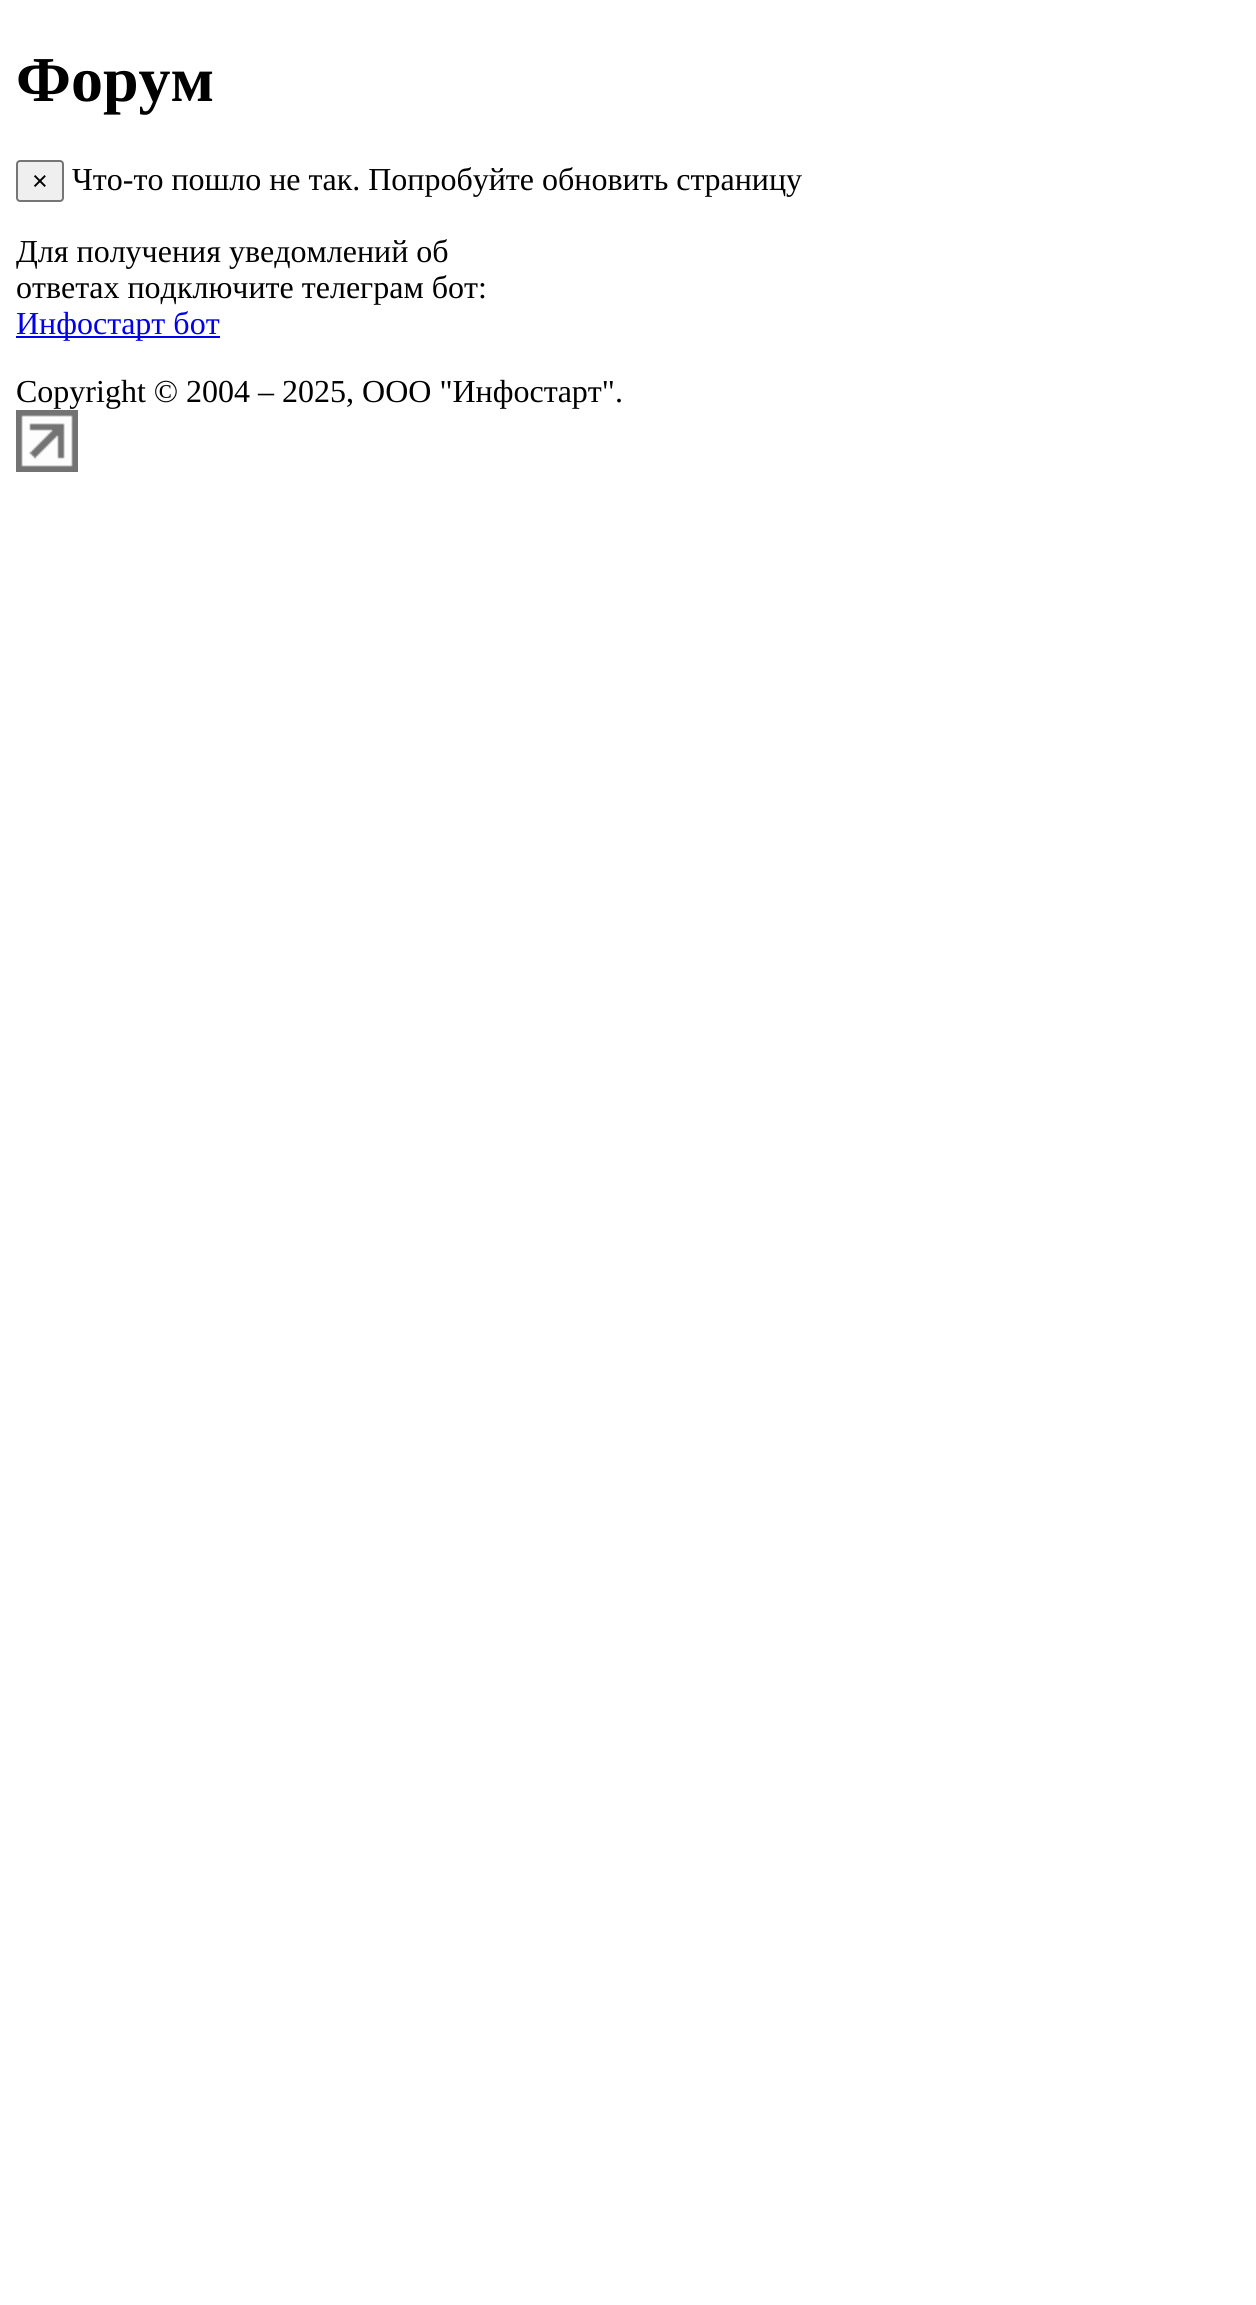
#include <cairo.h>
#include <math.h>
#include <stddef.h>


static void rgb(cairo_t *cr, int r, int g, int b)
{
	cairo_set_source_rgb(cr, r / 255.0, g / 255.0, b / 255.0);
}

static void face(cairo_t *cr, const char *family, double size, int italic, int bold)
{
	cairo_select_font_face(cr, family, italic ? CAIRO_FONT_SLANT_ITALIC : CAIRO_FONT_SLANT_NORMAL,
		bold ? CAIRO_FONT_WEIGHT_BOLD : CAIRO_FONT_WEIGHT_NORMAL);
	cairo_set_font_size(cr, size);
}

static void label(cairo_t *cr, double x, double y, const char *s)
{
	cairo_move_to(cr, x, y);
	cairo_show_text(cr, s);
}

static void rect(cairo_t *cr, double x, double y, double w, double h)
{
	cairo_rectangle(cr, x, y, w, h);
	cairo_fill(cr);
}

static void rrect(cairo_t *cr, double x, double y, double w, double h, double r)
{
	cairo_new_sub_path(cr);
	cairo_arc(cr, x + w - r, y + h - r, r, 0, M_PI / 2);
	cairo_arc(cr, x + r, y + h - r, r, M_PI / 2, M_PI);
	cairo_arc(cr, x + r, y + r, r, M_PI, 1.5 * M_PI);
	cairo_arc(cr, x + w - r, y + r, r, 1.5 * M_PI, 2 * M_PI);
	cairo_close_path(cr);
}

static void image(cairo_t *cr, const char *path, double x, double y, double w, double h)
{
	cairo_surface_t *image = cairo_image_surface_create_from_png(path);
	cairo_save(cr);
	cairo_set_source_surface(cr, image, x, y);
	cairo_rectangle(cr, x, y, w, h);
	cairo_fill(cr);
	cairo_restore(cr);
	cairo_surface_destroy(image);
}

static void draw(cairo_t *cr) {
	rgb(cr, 255, 255, 255);
	cairo_paint(cr);
	face(cr, "Liberation Serif", 64, 0, 1);
	rgb(cr, 0, 0, 0);
	label(cr, 16, 101, "Форум");
	rgb(cr, 239, 239, 239);
	rrect(cr, 17, 161, 46, 40, 3);
	cairo_fill_preserve(cr);
	rgb(cr, 118, 118, 118);
	cairo_stroke(cr);
	face(cr, "Liberation Sans", 27, 0, 0);
	rgb(cr, 0, 0, 0);
	label(cr, 32, 190, "×");
	face(cr, "Liberation Serif", 32, 0, 0);
	label(cr, 72, 190, "Что-то пошло не так. Попробуйте обновить страницу");
	label(cr, 16, 262, "Для получения уведомлений об");
	label(cr, 16, 298, "ответах подключите телеграм бот:");
	rgb(cr, 0, 0, 238);
	rect(cr, 16, 336, 204, 2);
	label(cr, 16, 334, "Инфостарт бот");
	rgb(cr, 0, 0, 0);
	label(cr, 16, 402, "Copyright © 2004 – 2025, ООО \"Инфостарт\".");
	image(cr, "image0.png", 16, 410, 62, 62);
}

int main(void) {
	cairo_surface_t *surface = cairo_image_surface_create(CAIRO_FORMAT_RGB24, 1256, 2305);
	cairo_t *cr = cairo_create(surface);
	cairo_font_options_t *options = cairo_font_options_create();
	cairo_font_options_set_hint_metrics(options, CAIRO_HINT_METRICS_OFF);
	cairo_font_options_set_hint_style(options, CAIRO_HINT_STYLE_NONE);
	cairo_set_font_options(cr, options);
	cairo_set_miter_limit(cr, 4);
	draw(cr);
	cairo_surface_write_to_png(surface, "render.png");
	cairo_font_options_destroy(options);
	cairo_destroy(cr);
	cairo_surface_destroy(surface);
	return 0;
}
